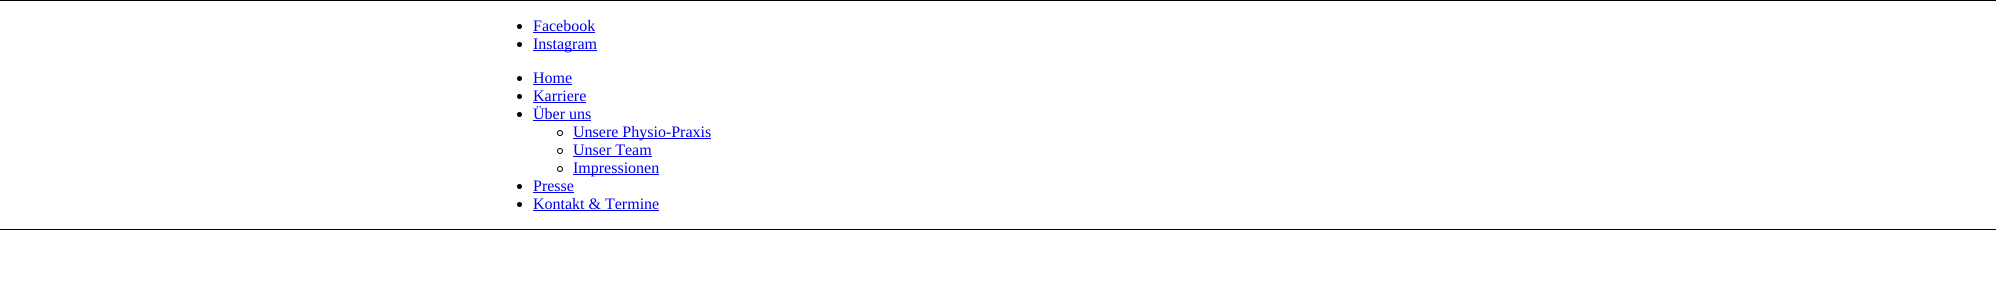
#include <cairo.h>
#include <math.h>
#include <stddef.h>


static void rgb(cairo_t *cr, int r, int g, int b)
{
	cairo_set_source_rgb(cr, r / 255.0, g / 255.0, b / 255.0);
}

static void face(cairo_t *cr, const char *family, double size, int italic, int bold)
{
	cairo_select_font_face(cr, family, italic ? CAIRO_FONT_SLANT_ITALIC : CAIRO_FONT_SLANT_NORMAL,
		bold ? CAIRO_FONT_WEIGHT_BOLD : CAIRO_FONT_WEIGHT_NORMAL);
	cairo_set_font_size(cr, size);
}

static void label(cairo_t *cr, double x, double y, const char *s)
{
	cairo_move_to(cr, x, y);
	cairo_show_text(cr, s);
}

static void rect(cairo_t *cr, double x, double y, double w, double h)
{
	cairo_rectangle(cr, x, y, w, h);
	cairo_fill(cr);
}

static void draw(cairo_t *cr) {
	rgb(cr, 255, 255, 255);
	cairo_paint(cr);
	rgb(cr, 0, 0, 0);
	rect(cr, 0, 0, 1996, 1);
	cairo_arc(cr, 519.5, 26.5, 2.5, 0, 2 * M_PI);
	cairo_fill(cr);
	face(cr, "Liberation Serif", 16, 0, 0);
	rgb(cr, 0, 0, 238);
	label(cr, 533, 31, "Facebook");
	rect(cr, 533, 32, 62, 1);
	rgb(cr, 0, 0, 0);
	cairo_new_path(cr);
	cairo_arc(cr, 519.5, 44.5, 2.5, 0, 2 * M_PI);
	cairo_fill(cr);
	rgb(cr, 0, 0, 238);
	rect(cr, 533, 50, 64, 1);
	label(cr, 533, 49, "Instagram");
	rgb(cr, 0, 0, 0);
	cairo_new_path(cr);
	cairo_arc(cr, 519.5, 78.5, 2.5, 0, 2 * M_PI);
	cairo_fill(cr);
	rgb(cr, 0, 0, 238);
	label(cr, 533, 83, "Home");
	rect(cr, 533, 84, 39, 1);
	rgb(cr, 0, 0, 0);
	cairo_new_path(cr);
	cairo_arc(cr, 519.5, 96.5, 2.5, 0, 2 * M_PI);
	cairo_fill(cr);
	rgb(cr, 0, 0, 238);
	label(cr, 533, 101, "Karriere");
	rect(cr, 533, 102, 53, 1);
	rgb(cr, 0, 0, 0);
	cairo_new_path(cr);
	cairo_arc(cr, 519.5, 114.5, 2.5, 0, 2 * M_PI);
	cairo_fill(cr);
	rgb(cr, 0, 0, 238);
	label(cr, 533, 119, "Über uns");
	rect(cr, 533, 120, 58, 1);
	cairo_new_path(cr);
	cairo_arc(cr, 560, 133, 2.5, 0, 2 * M_PI);
	rgb(cr, 0, 0, 0);
	cairo_set_line_width(cr, 1);
	cairo_stroke(cr);
	rgb(cr, 0, 0, 238);
	rect(cr, 573, 138, 138, 1);
	label(cr, 573, 137, "Unsere Physio-Praxis");
	cairo_new_path(cr);
	cairo_arc(cr, 560, 151, 2.5, 0, 2 * M_PI);
	rgb(cr, 0, 0, 0);
	cairo_stroke(cr);
	rgb(cr, 0, 0, 238);
	label(cr, 573, 155, "Unser Team");
	rect(cr, 573, 156, 79, 1);
	cairo_new_path(cr);
	cairo_arc(cr, 560, 169, 2.5, 0, 2 * M_PI);
	rgb(cr, 0, 0, 0);
	cairo_stroke(cr);
	rgb(cr, 0, 0, 238);
	rect(cr, 573, 174, 86, 1);
	label(cr, 573, 173, "Impressionen");
	rgb(cr, 0, 0, 0);
	cairo_new_path(cr);
	cairo_arc(cr, 519.5, 186.5, 2.5, 0, 2 * M_PI);
	cairo_fill(cr);
	rgb(cr, 0, 0, 238);
	label(cr, 533, 191, "Presse");
	rect(cr, 533, 192, 41, 1);
	rgb(cr, 0, 0, 0);
	cairo_new_path(cr);
	cairo_arc(cr, 519.5, 204.5, 2.5, 0, 2 * M_PI);
	cairo_fill(cr);
	rgb(cr, 0, 0, 238);
	label(cr, 533, 209, "Kontakt & Termine");
	rect(cr, 533, 210, 126, 1);
	rgb(cr, 0, 0, 0);
	rect(cr, 0, 229, 1996, 1);
}

int main(void) {
	cairo_surface_t *surface = cairo_image_surface_create(CAIRO_FORMAT_RGB24, 1996, 305);
	cairo_t *cr = cairo_create(surface);
	cairo_font_options_t *options = cairo_font_options_create();
	cairo_font_options_set_hint_metrics(options, CAIRO_HINT_METRICS_OFF);
	cairo_font_options_set_hint_style(options, CAIRO_HINT_STYLE_NONE);
	cairo_set_font_options(cr, options);
	cairo_set_miter_limit(cr, 4);
	draw(cr);
	cairo_surface_write_to_png(surface, "render.png");
	cairo_font_options_destroy(options);
	cairo_destroy(cr);
	cairo_surface_destroy(surface);
	return 0;
}
